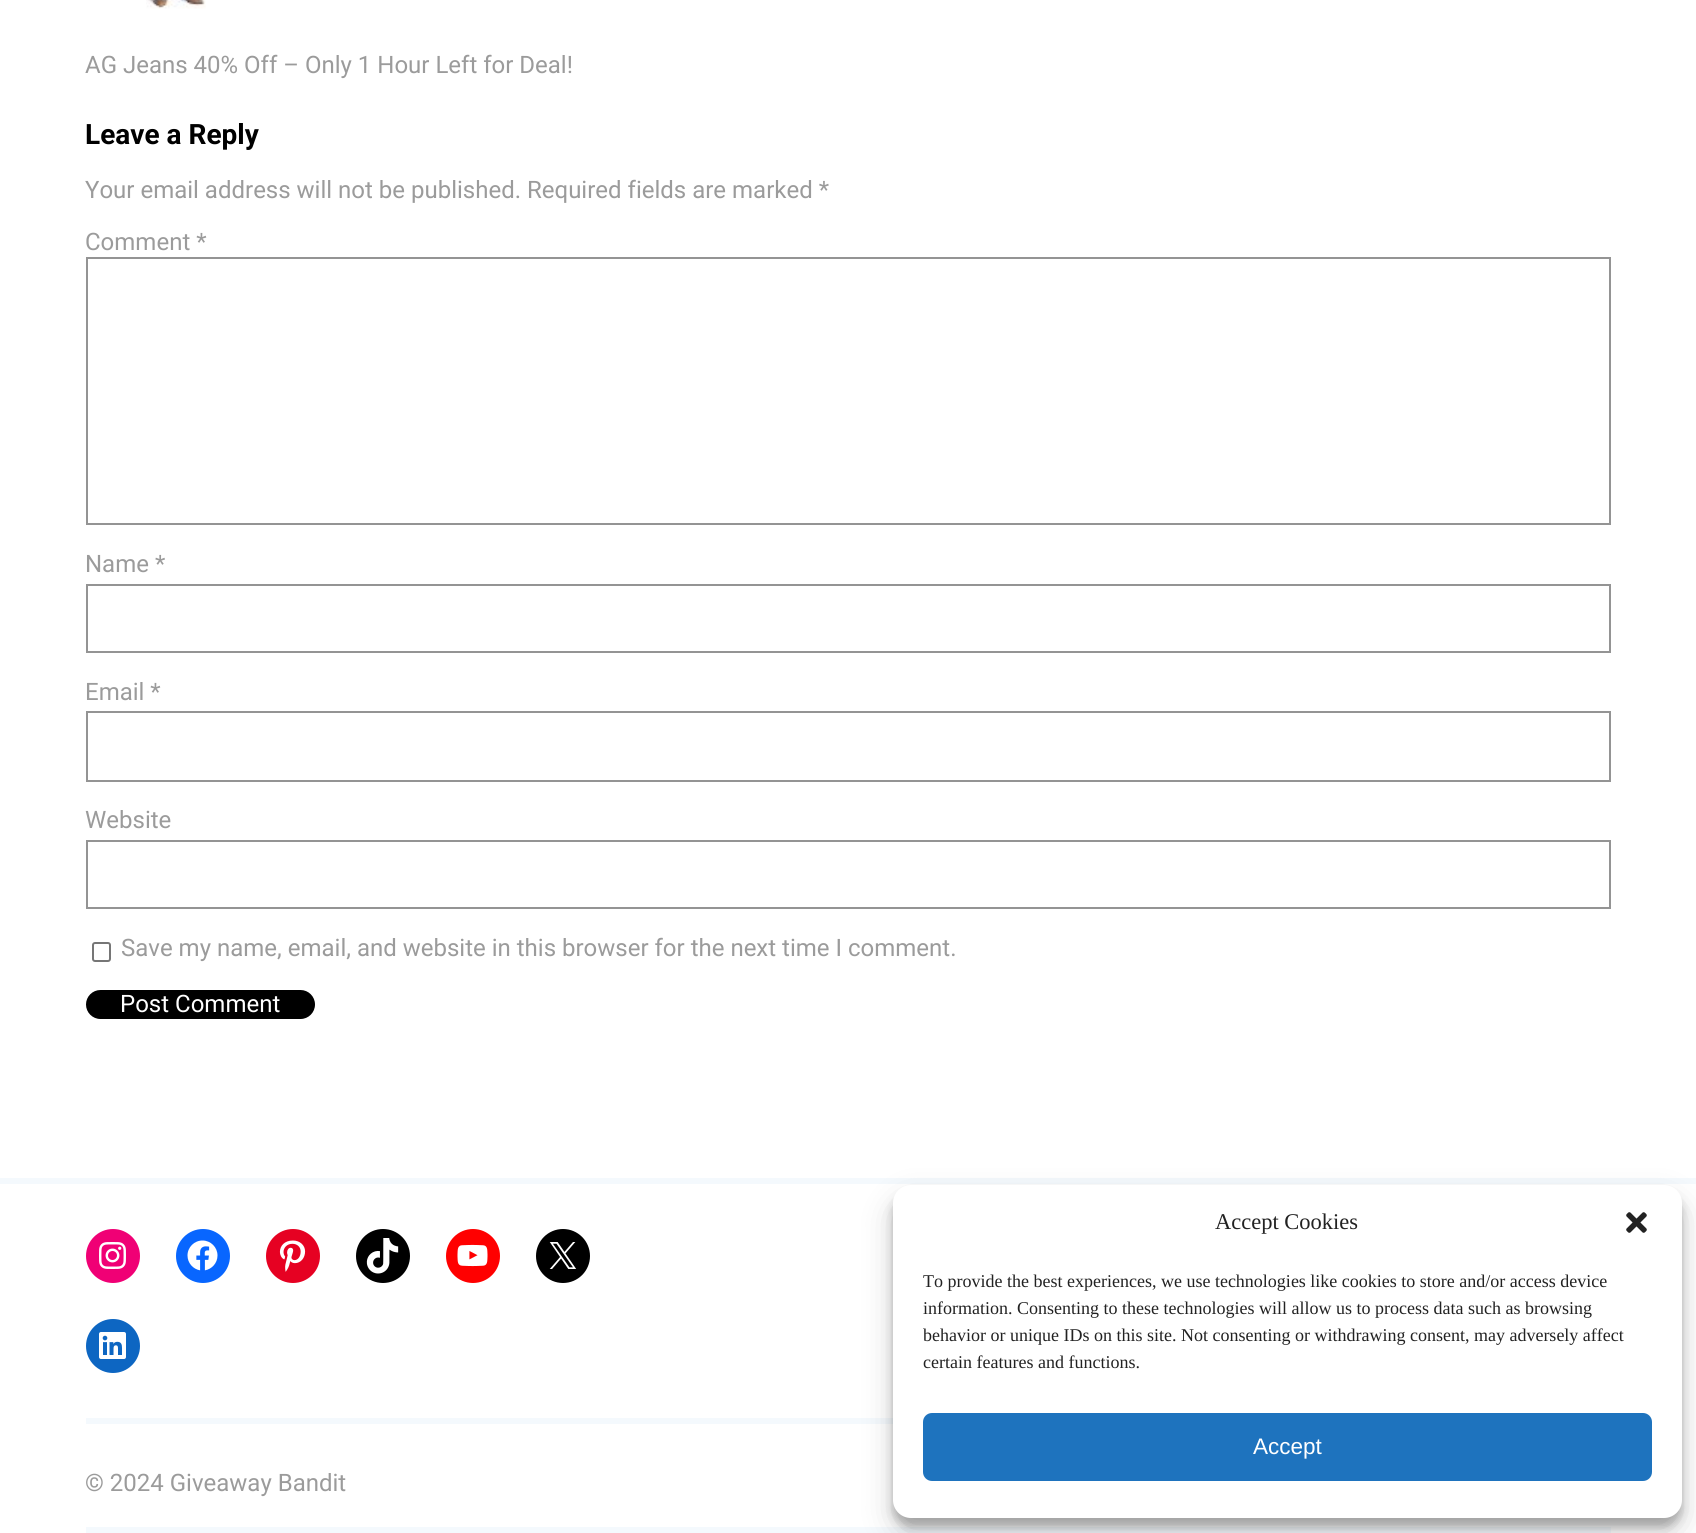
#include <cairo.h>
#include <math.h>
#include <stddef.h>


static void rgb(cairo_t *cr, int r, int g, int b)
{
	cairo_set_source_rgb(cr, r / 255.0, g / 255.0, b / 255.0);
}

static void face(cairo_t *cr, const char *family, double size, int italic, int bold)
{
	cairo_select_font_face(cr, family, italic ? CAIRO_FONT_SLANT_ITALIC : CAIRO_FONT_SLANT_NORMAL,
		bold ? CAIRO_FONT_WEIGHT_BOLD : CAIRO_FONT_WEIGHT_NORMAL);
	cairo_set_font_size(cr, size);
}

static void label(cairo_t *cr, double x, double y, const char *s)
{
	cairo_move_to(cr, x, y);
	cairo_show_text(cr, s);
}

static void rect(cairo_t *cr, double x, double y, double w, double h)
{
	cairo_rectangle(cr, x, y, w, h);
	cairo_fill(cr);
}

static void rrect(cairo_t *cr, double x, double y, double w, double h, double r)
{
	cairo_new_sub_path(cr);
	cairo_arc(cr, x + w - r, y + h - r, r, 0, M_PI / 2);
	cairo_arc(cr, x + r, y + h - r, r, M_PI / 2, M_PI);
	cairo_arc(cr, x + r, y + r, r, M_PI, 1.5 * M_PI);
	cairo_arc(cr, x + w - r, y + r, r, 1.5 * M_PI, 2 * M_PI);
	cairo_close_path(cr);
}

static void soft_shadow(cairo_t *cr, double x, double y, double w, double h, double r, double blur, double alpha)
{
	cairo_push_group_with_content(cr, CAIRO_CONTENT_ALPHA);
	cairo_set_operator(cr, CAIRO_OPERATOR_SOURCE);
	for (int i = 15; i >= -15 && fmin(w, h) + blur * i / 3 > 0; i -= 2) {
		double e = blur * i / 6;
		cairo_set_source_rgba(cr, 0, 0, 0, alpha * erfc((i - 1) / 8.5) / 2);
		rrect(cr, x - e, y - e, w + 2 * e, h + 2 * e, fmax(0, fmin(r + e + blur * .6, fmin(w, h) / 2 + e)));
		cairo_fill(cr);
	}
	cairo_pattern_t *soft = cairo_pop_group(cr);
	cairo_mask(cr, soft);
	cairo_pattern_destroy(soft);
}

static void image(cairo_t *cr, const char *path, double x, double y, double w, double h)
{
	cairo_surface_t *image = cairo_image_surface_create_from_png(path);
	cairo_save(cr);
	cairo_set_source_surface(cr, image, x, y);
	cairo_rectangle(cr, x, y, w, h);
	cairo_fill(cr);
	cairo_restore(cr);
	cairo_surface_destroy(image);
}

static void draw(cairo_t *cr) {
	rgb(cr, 255, 255, 255);
	cairo_paint(cr);
	image(cr, "image0.png", 146, 0, 60, 9);
	face(cr, "Roboto", 24, 0, 0);
	rgb(cr, 155, 155, 155);
	label(cr, 85, 73, "AG Jeans 40% Off – Only 1 Hour Left for Deal!");
	face(cr, "Roboto", 28, 0, 1);
	rgb(cr, 0, 0, 0);
	label(cr, 85, 144, "Leave a Reply");
	face(cr, "Roboto", 24, 0, 0);
	rgb(cr, 155, 155, 155);
	label(cr, 85, 198, "Your email address will not be published. Required fields are marked *");
	label(cr, 85, 250, "Comment *");
	cairo_rectangle(cr, 87, 258, 1523, 266);
	rgb(cr, 148, 148, 148);
	cairo_stroke(cr);
	rgb(cr, 155, 155, 155);
	label(cr, 85, 572, "Name *");
	cairo_rectangle(cr, 87, 585, 1523, 67);
	rgb(cr, 148, 148, 148);
	cairo_stroke(cr);
	rgb(cr, 155, 155, 155);
	label(cr, 85, 700, "Email *");
	cairo_rectangle(cr, 87, 712, 1523, 69);
	rgb(cr, 148, 148, 148);
	cairo_stroke(cr);
	rgb(cr, 155, 155, 155);
	label(cr, 85, 828, "Website");
	cairo_rectangle(cr, 87, 841, 1523, 67);
	rgb(cr, 148, 148, 148);
	cairo_stroke(cr);
	rrect(cr, 93, 943, 17, 18, 2);
	rgb(cr, 118, 118, 118);
	cairo_stroke(cr);
	rgb(cr, 155, 155, 155);
	label(cr, 121, 956, "Save my name, email, and website in this browser for the next time I comment.");
	rgb(cr, 0, 0, 0);
	rrect(cr, 86, 990, 229, 29, 14.5);
	cairo_fill(cr);
	rgb(cr, 255, 255, 255);
	label(cr, 120, 1012, "Post Comment");
	rgb(cr, 244, 249, 253);
	rect(cr, 0, 1178, 1696, 6);
	rect(cr, 86, 1527, 1525, 6);
	rect(cr, 86, 1418, 807, 6);
	rgb(cr, 240, 0, 117);
	cairo_new_path(cr);
	cairo_arc(cr, 113, 1256, 27, 0, 2 * M_PI);
	cairo_fill(cr);
	image(cr, "image1.png", 99, 1242, 27, 27);
	rgb(cr, 8, 102, 255);
	cairo_arc(cr, 203, 1256, 27, 0, 2 * M_PI);
	cairo_fill(cr);
	image(cr, "image2.png", 187, 1240, 31, 31);
	rgb(cr, 230, 1, 34);
	cairo_arc(cr, 293, 1256, 27, 0, 2 * M_PI);
	cairo_fill(cr);
	image(cr, "image3.png", 279, 1240, 27, 32);
	rgb(cr, 0, 0, 0);
	cairo_arc(cr, 383, 1256, 27, 0, 2 * M_PI);
	cairo_fill(cr);
	image(cr, "image4.png", 366, 1238, 33, 36);
	rgb(cr, 255, 0, 0);
	cairo_arc(cr, 473, 1256, 27, 0, 2 * M_PI);
	cairo_fill(cr);
	image(cr, "image5.png", 457, 1244, 31, 23);
	rgb(cr, 0, 0, 0);
	cairo_arc(cr, 563, 1256, 27, 0, 2 * M_PI);
	cairo_fill(cr);
	image(cr, "image6.png", 549, 1242, 28, 27);
	rgb(cr, 13, 102, 194);
	cairo_arc(cr, 113, 1346, 27, 0, 2 * M_PI);
	cairo_fill(cr);
	image(cr, "image7.png", 99, 1332, 27, 27);
	rgb(cr, 155, 155, 155);
	label(cr, 85, 1491, "© 2024 Giveaway Bandit");
	rgb(cr, 0, 0, 0);
	soft_shadow(cr, 893, 1194, 789, 333, 18, 4.5, 0.23);
	soft_shadow(cr, 893, 1200, 789, 333, 18, 15, 0.19);
	rgb(cr, 255, 255, 255);
	rrect(cr, 893, 1185, 789, 333, 18);
	cairo_fill(cr);
	face(cr, "Liberation Serif", 22.5, 0, 0);
	rgb(cr, 34, 34, 34);
	label(cr, 1215, 1229, "Accept Cookies");
	image(cr, "image8.png", 1626, 1212, 21, 21);
	cairo_save(cr);
	cairo_rectangle(cr, 923, 1268, 729, 115);
	cairo_clip(cr);
	face(cr, "Liberation Serif", 18, 0, 0);
	label(cr, 923, 1287, "To provide the best experiences, we use technologies like cookies to store and/or access device");
	cairo_restore(cr);
	face(cr, "Liberation Serif", 18, 0, 0);
	label(cr, 923, 1314, "information. Consenting to these technologies will allow us to process data such as browsing");
	label(cr, 923, 1341, "behavior or unique IDs on this site. Not consenting or withdrawing consent, may adversely affect");
	label(cr, 923, 1368, "certain features and functions.");
	rgb(cr, 30, 115, 190);
	rrect(cr, 924, 1414, 727, 66, 8);
	cairo_fill_preserve(cr);
	cairo_stroke(cr);
	face(cr, "Liberation Sans", 22.5, 0, 0);
	rgb(cr, 255, 255, 255);
	label(cr, 1253, 1454, "Accept");
}

int main(void) {
	cairo_surface_t *surface = cairo_image_surface_create(CAIRO_FORMAT_RGB24, 1696, 1533);
	cairo_t *cr = cairo_create(surface);
	cairo_font_options_t *options = cairo_font_options_create();
	cairo_font_options_set_hint_metrics(options, CAIRO_HINT_METRICS_OFF);
	cairo_font_options_set_hint_style(options, CAIRO_HINT_STYLE_NONE);
	cairo_set_font_options(cr, options);
	cairo_set_miter_limit(cr, 4);
	draw(cr);
	cairo_surface_write_to_png(surface, "render.png");
	cairo_font_options_destroy(options);
	cairo_destroy(cr);
	cairo_surface_destroy(surface);
	return 0;
}
